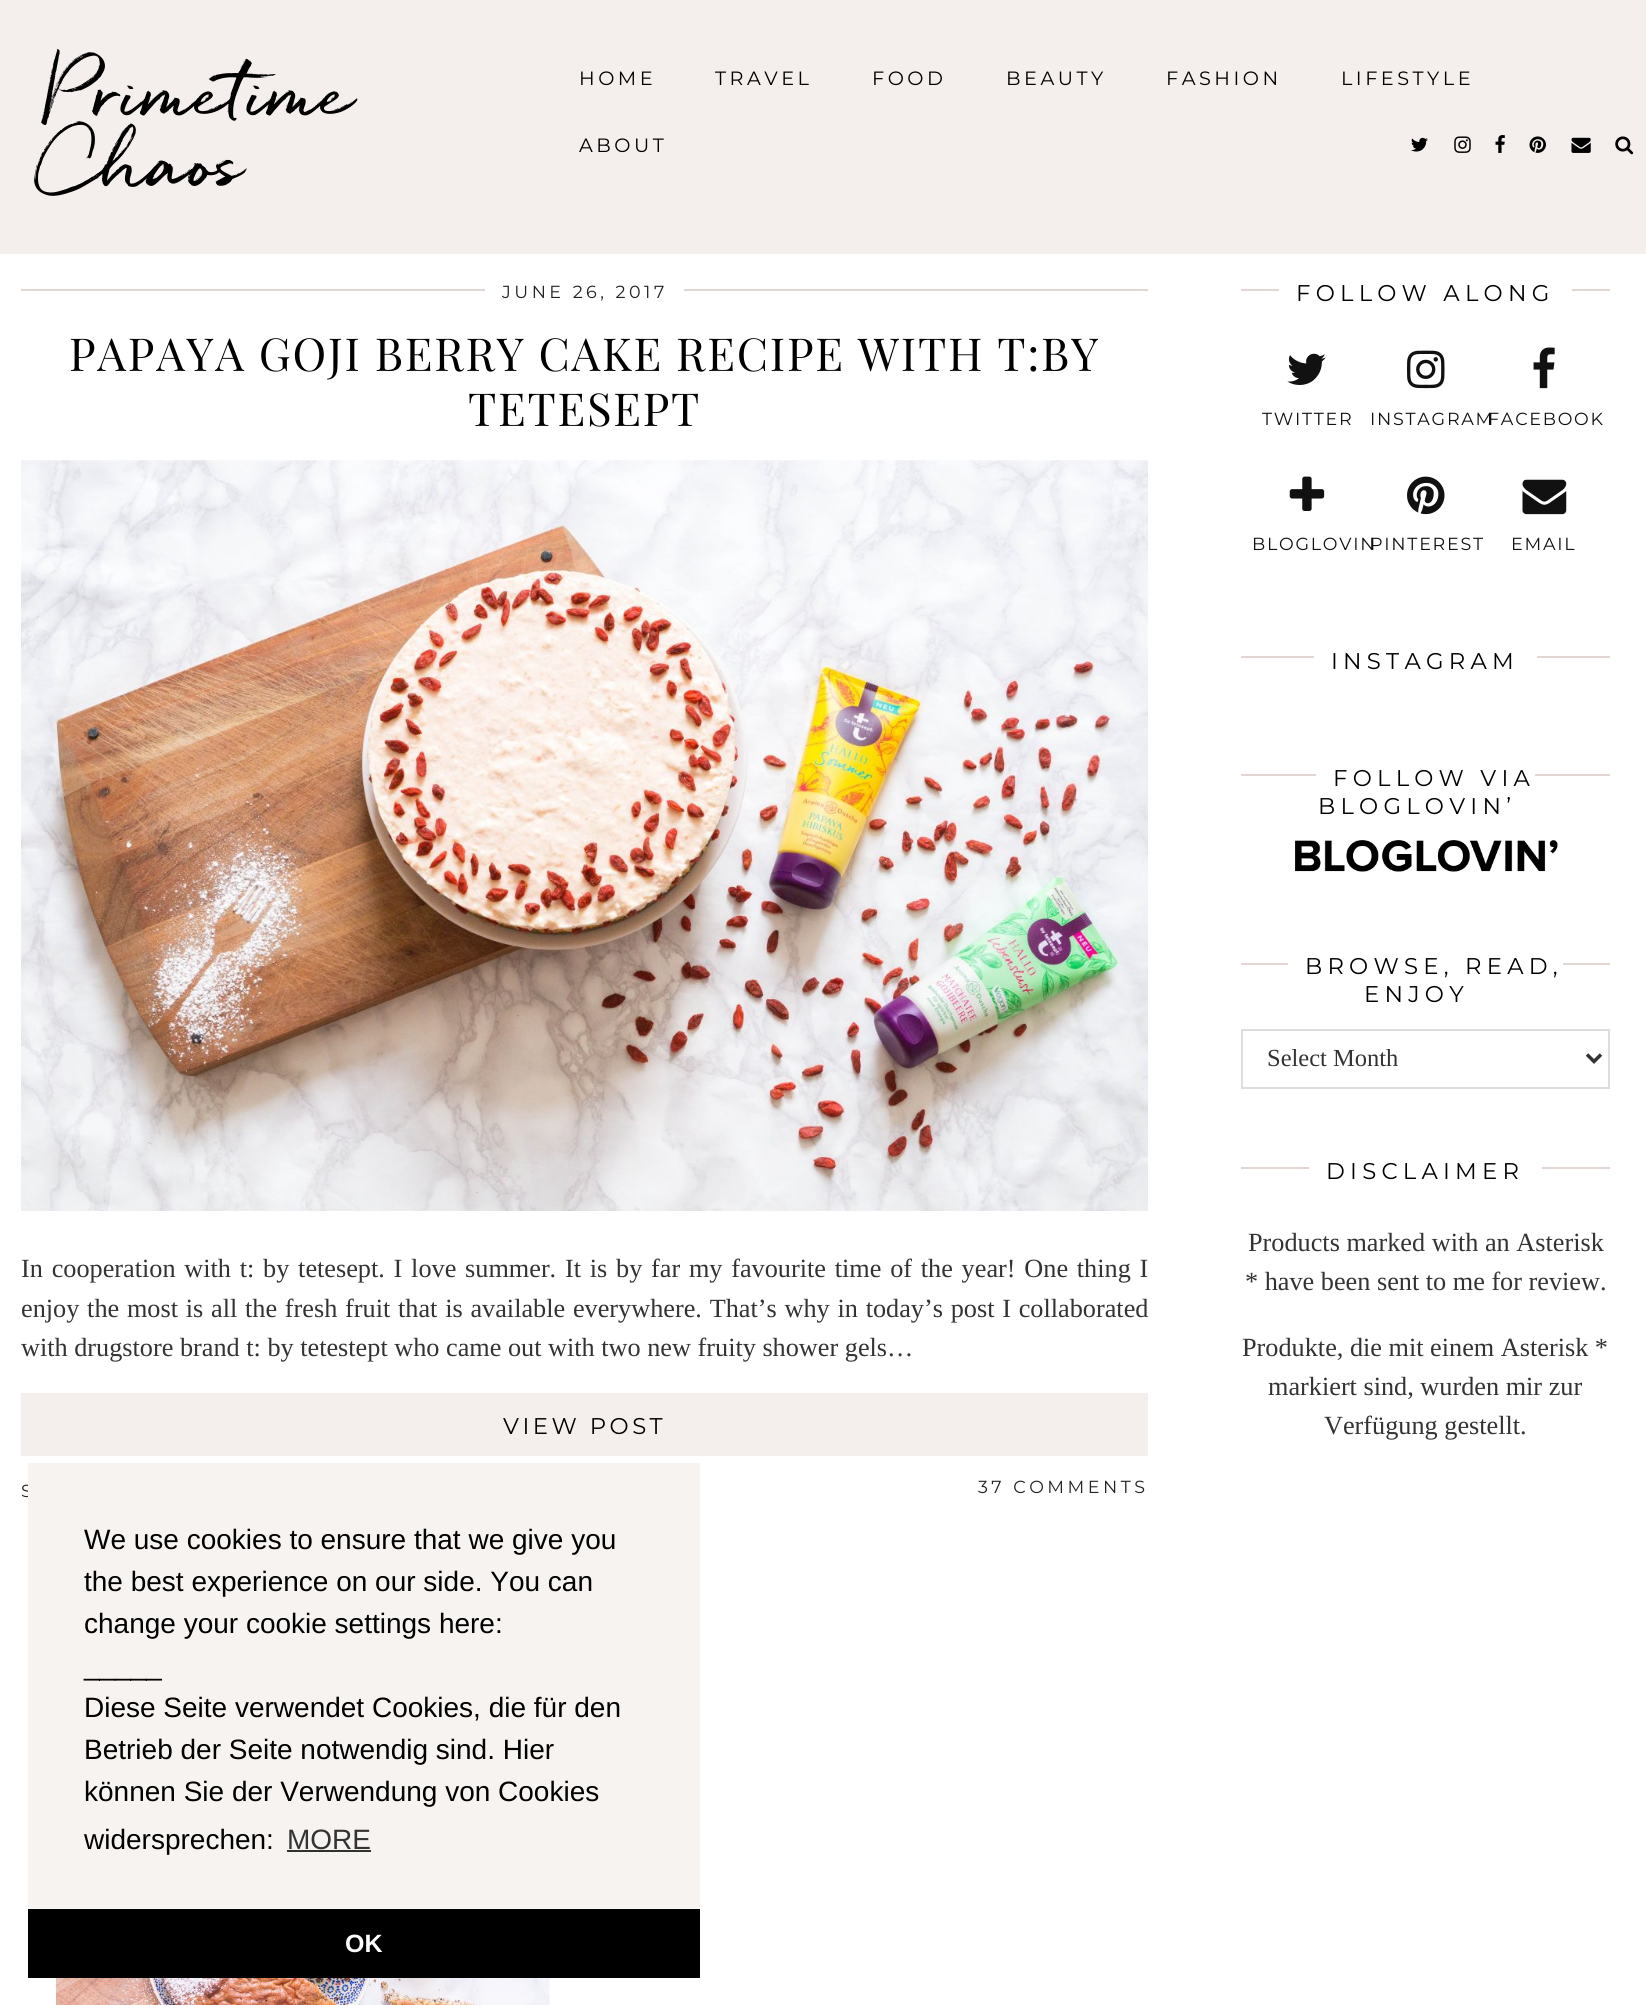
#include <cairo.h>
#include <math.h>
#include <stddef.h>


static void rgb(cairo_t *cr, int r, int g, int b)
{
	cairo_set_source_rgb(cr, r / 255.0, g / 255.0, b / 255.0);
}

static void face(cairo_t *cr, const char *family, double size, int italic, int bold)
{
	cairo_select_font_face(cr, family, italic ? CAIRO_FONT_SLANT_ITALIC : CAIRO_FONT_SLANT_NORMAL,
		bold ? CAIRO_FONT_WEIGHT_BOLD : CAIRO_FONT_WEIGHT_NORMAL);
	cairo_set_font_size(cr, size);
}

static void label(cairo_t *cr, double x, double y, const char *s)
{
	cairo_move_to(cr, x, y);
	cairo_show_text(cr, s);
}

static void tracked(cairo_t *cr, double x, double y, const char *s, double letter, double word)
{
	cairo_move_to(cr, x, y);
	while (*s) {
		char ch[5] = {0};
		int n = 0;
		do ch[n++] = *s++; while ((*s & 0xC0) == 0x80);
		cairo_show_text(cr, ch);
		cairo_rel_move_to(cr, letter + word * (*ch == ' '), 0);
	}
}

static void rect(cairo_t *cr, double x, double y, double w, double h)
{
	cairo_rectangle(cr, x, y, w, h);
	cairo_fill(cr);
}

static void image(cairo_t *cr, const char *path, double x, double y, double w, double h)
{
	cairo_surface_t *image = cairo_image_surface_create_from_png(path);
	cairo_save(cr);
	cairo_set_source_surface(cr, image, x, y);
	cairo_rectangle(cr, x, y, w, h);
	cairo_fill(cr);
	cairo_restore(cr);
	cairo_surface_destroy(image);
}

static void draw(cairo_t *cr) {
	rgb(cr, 255, 255, 255);
	cairo_paint(cr);
	rgb(cr, 244, 239, 236);
	rect(cr, 0, 0, 1646, 254);
	face(cr, "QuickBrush", 70, 0, 0);
	rgb(cr, 0, 0, 0);
	label(cr, 39, 114, "Primetime");
	label(cr, 39, 184, "Chaos");
	face(cr, "Montserrat Thin", 19.25, 0, 0);
	tracked(cr, 579, 85, "HOME", 3.5, 0);
	tracked(cr, 715, 85, "TRAVEL", 3.5, 0);
	tracked(cr, 872, 85, "FOOD", 3.5, 0);
	tracked(cr, 1006, 85, "BEAUTY", 3.5, 0);
	tracked(cr, 1166, 85, "FASHION", 3.5, 0);
	tracked(cr, 1341, 85, "LIFESTYLE", 3.5, 0);
	tracked(cr, 579, 152, "ABOUT", 3.5, 0);
	image(cr, "image0.png", 1411, 137, 17, 15);
	image(cr, "image1.png", 1454, 136, 17, 17);
	image(cr, "image2.png", 1495, 135, 10, 18);
	image(cr, "image3.png", 1529, 136, 17, 17);
	image(cr, "image4.png", 1571, 137, 20, 16);
	image(cr, "image5.png", 1615, 136, 19, 19);
	rgb(cr, 225, 214, 209);
	rect(cr, 21, 289, 1127, 2);
	rgb(cr, 255, 255, 255);
	rect(cr, 485, 289, 199, 2);
	face(cr, "Montserrat Thin", 17.5, 0, 0);
	rgb(cr, 34, 34, 34);
	tracked(cr, 502, 298, "JUNE 26, 2017", 3.5, 0);
	face(cr, "Playfair Display SC", 45.5, 0, 0);
	rgb(cr, 0, 0, 0);
	tracked(cr, 69, 371, "PAPAYA GOJI BERRY CAKE RECIPE WITH T:BY", 1.75, 0);
	tracked(cr, 468, 426, "TETESEPT", 1.75, 0);
	image(cr, "image6.png", 21, 460, 1127, 751);
	face(cr, "Liberation Serif", 26.25, 0, 0);
	rgb(cr, 51, 51, 51);
	tracked(cr, 21, 1277, "In cooperation with t: by tetesept. I love summer. It is by far my favourite time of the year! One thing I", 0, 2.2);
	tracked(cr, 21, 1317, "enjoy the most is all the fresh fruit that is available everywhere. That’s why in today’s post I collaborated", 0, 1.2);
	label(cr, 21, 1356, "with drugstore brand t: by tetestept who came out with two new fruity shower gels…");
	rgb(cr, 244, 239, 236);
	rect(cr, 21, 1393, 1127, 63);
	face(cr, "Montserrat Thin", 22.75, 0, 0);
	rgb(cr, 0, 0, 0);
	tracked(cr, 503, 1434, "VIEW POST", 3.5, 0);
	face(cr, "Montserrat Thin", 17.5, 0, 0);
	rgb(cr, 34, 34, 34);
	tracked(cr, 21, 1497, "S", 3.5, 0);
	tracked(cr, 978, 1493, "37 COMMENTS", 3.5, 0);
	image(cr, "image7.png", 56, 1978, 494, 27);
	rgb(cr, 225, 214, 209);
	rect(cr, 1241, 289, 369, 2);
	rgb(cr, 255, 255, 255);
	rect(cr, 1279, 289, 293, 2);
	face(cr, "Montserrat Thin", 22.75, 0, 0);
	rgb(cr, 0, 0, 0);
	tracked(cr, 1296, 301, "FOLLOW ALONG", 5.25, 0);
	image(cr, "image8.png", 1287, 353, 39, 32);
	face(cr, "Montserrat Thin", 17.5, 0, 0);
	rgb(cr, 17, 17, 17);
	tracked(cr, 1262, 425, "TWITTER", 1.75, 0);
	image(cr, "image9.png", 1407, 350, 38, 39);
	tracked(cr, 1370, 425, "INSTAGRAM", 1.75, 0);
	image(cr, "image10.png", 1533, 347, 22, 42);
	tracked(cr, 1488, 425, "FACEBOOK", 1.75, 0);
	image(cr, "image11.png", 1289, 476, 36, 35);
	tracked(cr, 1252, 550, "BLOGLOVIN", 1.75, 0);
	image(cr, "image12.png", 1407, 476, 38, 39);
	tracked(cr, 1370, 550, "PINTEREST", 1.75, 0);
	image(cr, "image13.png", 1522, 479, 45, 36);
	tracked(cr, 1511, 550, "EMAIL", 1.75, 0);
	rgb(cr, 225, 214, 209);
	rect(cr, 1241, 656, 369, 2);
	rgb(cr, 255, 255, 255);
	rect(cr, 1314, 656, 223, 2);
	face(cr, "Montserrat Thin", 22.75, 0, 0);
	rgb(cr, 0, 0, 0);
	tracked(cr, 1331, 669, "INSTAGRAM", 5.25, 0);
	rgb(cr, 225, 214, 209);
	rect(cr, 1241, 774, 369, 2);
	rgb(cr, 255, 255, 255);
	rect(cr, 1316, 774, 219, 2);
	rgb(cr, 0, 0, 0);
	tracked(cr, 1333, 786, "FOLLOW VIA", 5.25, 0);
	tracked(cr, 1318, 814, "BLOGLOVIN’", 5.25, 0);
	image(cr, "image14.png", 1295, 840, 263, 32);
	rgb(cr, 225, 214, 209);
	rect(cr, 1241, 963, 369, 2);
	rgb(cr, 255, 255, 255);
	rect(cr, 1288, 963, 275, 2);
	rgb(cr, 0, 0, 0);
	tracked(cr, 1305, 974, "BROWSE, READ,", 5.25, 0);
	tracked(cr, 1364, 1002, "ENJOY", 5.25, 0);
	cairo_rectangle(cr, 1242, 1030, 367, 58);
	rgb(cr, 221, 221, 221);
	cairo_stroke(cr);
	cairo_new_path(cr);
	cairo_move_to(cr, 1587, 1054.5);
	cairo_line_to(cr, 1594, 1061.5);
	cairo_line_to(cr, 1601, 1054.5);
	rgb(cr, 51, 51, 51);
	cairo_set_line_width(cr, 3.5);
	cairo_stroke(cr);
	face(cr, "Liberation Serif", 24.5, 0, 0);
	label(cr, 1267, 1066, "Select Month");
	rgb(cr, 225, 214, 209);
	rect(cr, 1241, 1167, 369, 2);
	rgb(cr, 255, 255, 255);
	rect(cr, 1309, 1167, 233, 2);
	face(cr, "Montserrat Thin", 22.75, 0, 0);
	rgb(cr, 0, 0, 0);
	tracked(cr, 1326, 1179, "DISCLAIMER", 5.25, 0);
	face(cr, "Liberation Serif", 26.25, 0, 0);
	rgb(cr, 51, 51, 51);
	label(cr, 1248, 1251, "Products marked with an Asterisk");
	label(cr, 1245, 1290, "* have been sent to me for review.");
	label(cr, 1242, 1356, "Produkte, die mit einem Asterisk *");
	label(cr, 1268, 1395, "markiert sind, wurden mir zur");
	label(cr, 1324, 1434, "Verfügung gestellt.");
	rgb(cr, 247, 243, 240);
	rect(cr, 28, 1463, 672, 446);
	face(cr, "Liberation Sans", 28, 0, 0);
	rgb(cr, 0, 0, 0);
	label(cr, 84, 1549, "We use cookies to ensure that we give you");
	label(cr, 84, 1591, "the best experience on our side. You can");
	label(cr, 84, 1633, "change your cookie settings here:");
	label(cr, 84, 1675, "_____");
	label(cr, 84, 1717, "Diese Seite verwendet Cookies, die für den");
	label(cr, 84, 1759, "Betrieb der Seite notwendig sind. Hier");
	label(cr, 84, 1801, "können Sie der Verwendung von Cookies");
	label(cr, 84, 1849, "widersprechen:");
	rgb(cr, 51, 51, 51);
	label(cr, 287, 1849, "MORE");
	rgb(cr, 49, 49, 48);
	rect(cr, 287, 1850, 84, 2);
	rgb(cr, 0, 0, 0);
	rect(cr, 28, 1909, 672, 69);
	face(cr, "Liberation Sans", 25, 0, 1);
	rgb(cr, 255, 255, 255);
	label(cr, 345, 1952, "OK");
}

int main(void) {
	cairo_surface_t *surface = cairo_image_surface_create(CAIRO_FORMAT_RGB24, 1646, 2005);
	cairo_t *cr = cairo_create(surface);
	cairo_font_options_t *options = cairo_font_options_create();
	cairo_font_options_set_hint_metrics(options, CAIRO_HINT_METRICS_OFF);
	cairo_font_options_set_hint_style(options, CAIRO_HINT_STYLE_NONE);
	cairo_set_font_options(cr, options);
	cairo_set_miter_limit(cr, 4);
	draw(cr);
	cairo_surface_write_to_png(surface, "render.png");
	cairo_font_options_destroy(options);
	cairo_destroy(cr);
	cairo_surface_destroy(surface);
	return 0;
}
